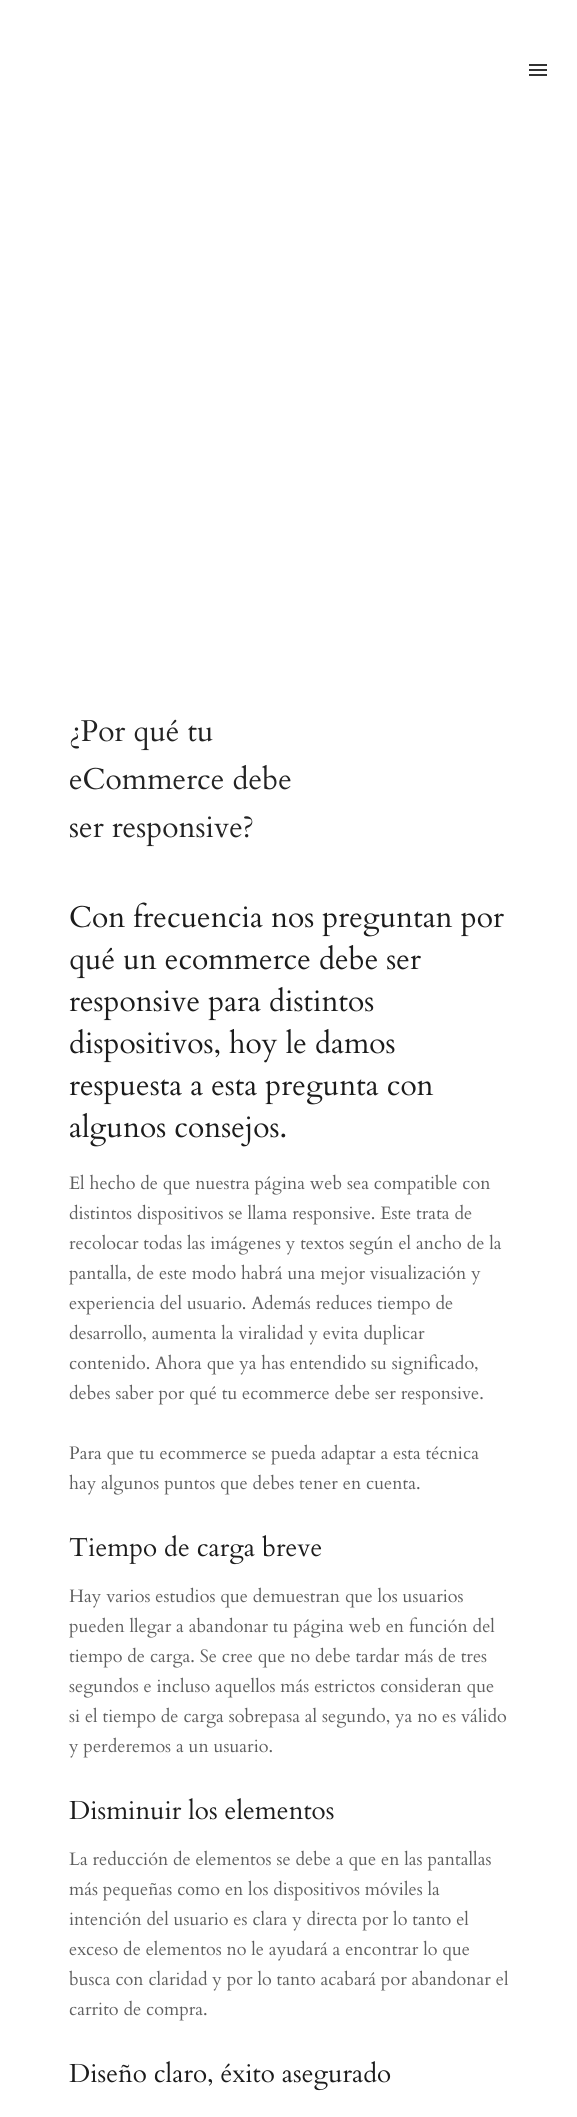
#include <cairo.h>
#include <math.h>
#include <stddef.h>


static void rgb(cairo_t *cr, int r, int g, int b)
{
	cairo_set_source_rgb(cr, r / 255.0, g / 255.0, b / 255.0);
}

static void face(cairo_t *cr, const char *family, double size, int italic, int bold)
{
	cairo_select_font_face(cr, family, italic ? CAIRO_FONT_SLANT_ITALIC : CAIRO_FONT_SLANT_NORMAL,
		bold ? CAIRO_FONT_WEIGHT_BOLD : CAIRO_FONT_WEIGHT_NORMAL);
	cairo_set_font_size(cr, size);
}

static void label(cairo_t *cr, double x, double y, const char *s)
{
	cairo_move_to(cr, x, y);
	cairo_show_text(cr, s);
}

static void rect(cairo_t *cr, double x, double y, double w, double h)
{
	cairo_rectangle(cr, x, y, w, h);
	cairo_fill(cr);
}

static void draw(cairo_t *cr) {
	rgb(cr, 255, 255, 255);
	cairo_paint(cr);
	rgb(cr, 50, 50, 50);
	rect(cr, 529, 64, 18, 2);
	rect(cr, 529, 69, 18, 2);
	rect(cr, 529, 74, 18, 2);
	face(cr, "Cardo", 30, 0, 0);
	rgb(cr, 35, 35, 35);
	label(cr, 69, 741, "¿Por qué tu");
	label(cr, 69, 789, "eCommerce debe");
	label(cr, 69, 837, "ser responsive?");
	rgb(cr, 28, 28, 28);
	label(cr, 69, 927, "Con frecuencia nos preguntan por");
	label(cr, 69, 969, "qué un ecommerce debe ser");
	label(cr, 69, 1011, "responsive para distintos");
	label(cr, 69, 1053, "dispositivos, hoy le damos");
	label(cr, 69, 1095, "respuesta a esta pregunta con");
	label(cr, 69, 1137, "algunos consejos.");
	face(cr, "Cardo", 18, 0, 0);
	rgb(cr, 95, 95, 95);
	label(cr, 69, 1189, "El hecho de que nuestra página web sea compatible con");
	label(cr, 69, 1219, "distintos dispositivos se llama responsive. Este trata de");
	label(cr, 69, 1249, "recolocar todas las imágenes y textos según el ancho de la");
	label(cr, 69, 1279, "pantalla, de este modo habrá una mejor visualización y");
	label(cr, 69, 1309, "experiencia del usuario. Además reduces tiempo de");
	label(cr, 69, 1339, "desarrollo, aumenta la viralidad y evita duplicar");
	label(cr, 69, 1369, "contenido. Ahora que ya has entendido su significado,");
	label(cr, 69, 1399, "debes saber por qué tu ecommerce debe ser responsive.");
	label(cr, 69, 1459, "Para que tu ecommerce se pueda adaptar a esta técnica");
	label(cr, 69, 1489, "hay algunos puntos que debes tener en cuenta.");
	face(cr, "Cardo", 26, 0, 0);
	rgb(cr, 28, 28, 28);
	label(cr, 69, 1556, "Tiempo de carga breve");
	face(cr, "Cardo", 18, 0, 0);
	rgb(cr, 95, 95, 95);
	label(cr, 69, 1602, "Hay varios estudios que demuestran que los usuarios");
	label(cr, 69, 1632, "pueden llegar a abandonar tu página web en función del");
	label(cr, 69, 1662, "tiempo de carga. Se cree que no debe tardar más de tres");
	label(cr, 69, 1692, "segundos e incluso aquellos más estrictos consideran que");
	label(cr, 69, 1722, "si el tiempo de carga sobrepasa al segundo, ya no es válido");
	label(cr, 69, 1752, "y perderemos a un usuario.");
	face(cr, "Cardo", 26, 0, 0);
	rgb(cr, 28, 28, 28);
	label(cr, 69, 1819, "Disminuir los elementos");
	face(cr, "Cardo", 18, 0, 0);
	rgb(cr, 95, 95, 95);
	label(cr, 69, 1865, "La reducción de elementos se debe a que en las pantallas");
	label(cr, 69, 1895, "más pequeñas como en los dispositivos móviles la");
	label(cr, 69, 1925, "intención del usuario es clara y directa por lo tanto el");
	label(cr, 69, 1955, "exceso de elementos no le ayudará a encontrar lo que");
	label(cr, 69, 1985, "busca con claridad y por lo tanto acabará por abandonar el");
	label(cr, 69, 2015, "carrito de compra.");
	face(cr, "Cardo", 26, 0, 0);
	rgb(cr, 28, 28, 28);
	label(cr, 69, 2082, "Diseño claro, éxito asegurado");
}

int main(void) {
	cairo_surface_t *surface = cairo_image_surface_create(CAIRO_FORMAT_RGB24, 577, 2117);
	cairo_t *cr = cairo_create(surface);
	cairo_font_options_t *options = cairo_font_options_create();
	cairo_font_options_set_hint_metrics(options, CAIRO_HINT_METRICS_OFF);
	cairo_font_options_set_hint_style(options, CAIRO_HINT_STYLE_NONE);
	cairo_set_font_options(cr, options);
	cairo_set_miter_limit(cr, 4);
	draw(cr);
	cairo_surface_write_to_png(surface, "render.png");
	cairo_font_options_destroy(options);
	cairo_destroy(cr);
	cairo_surface_destroy(surface);
	return 0;
}
